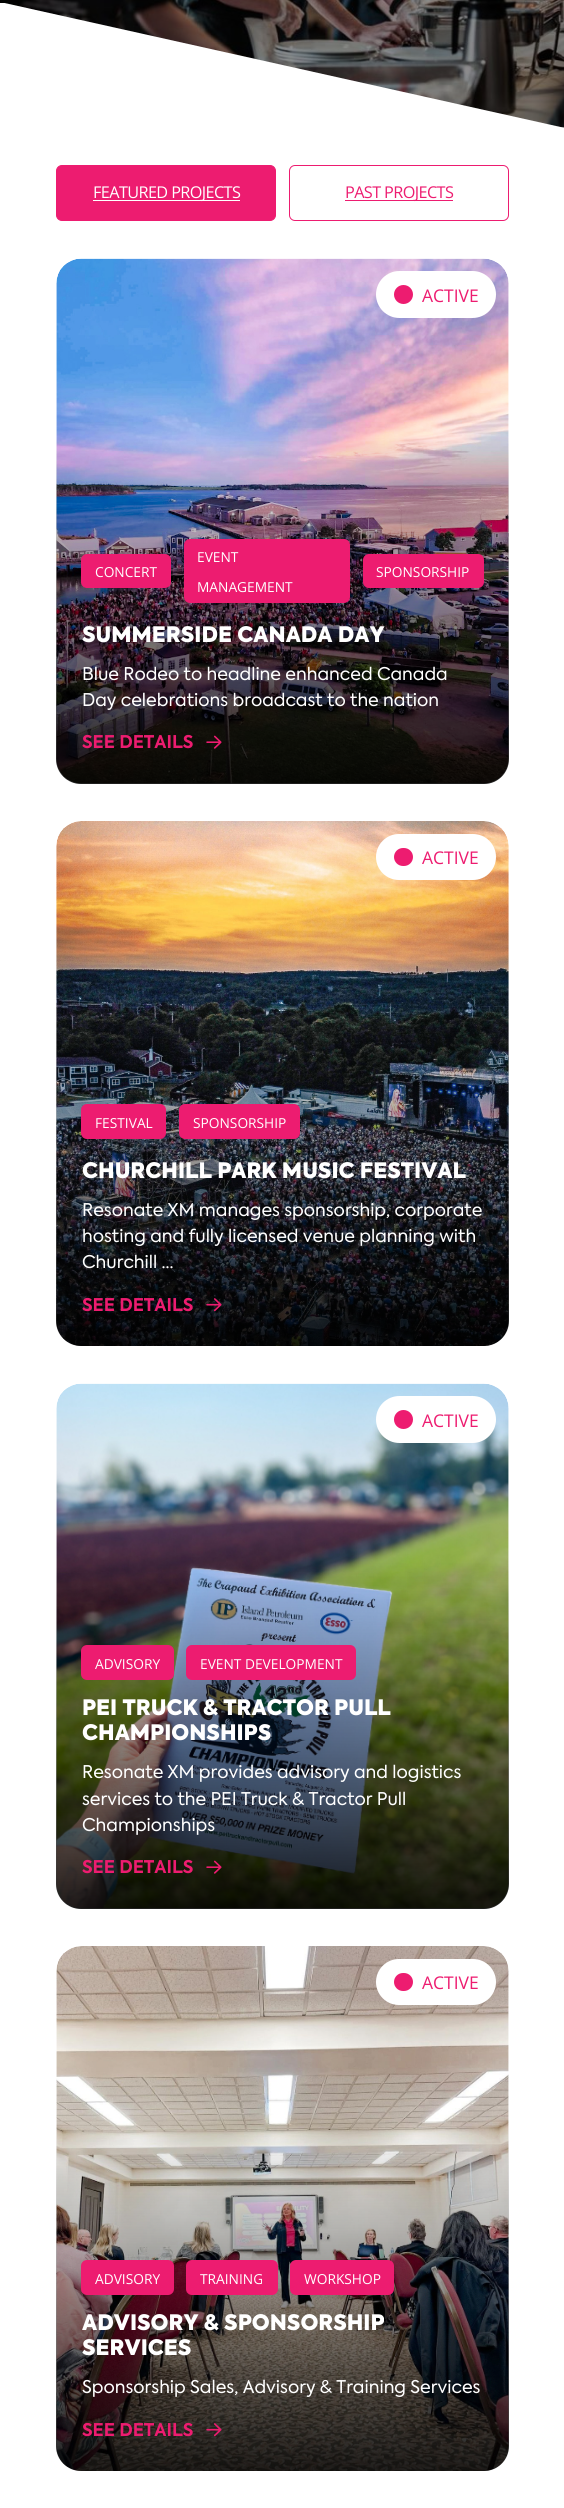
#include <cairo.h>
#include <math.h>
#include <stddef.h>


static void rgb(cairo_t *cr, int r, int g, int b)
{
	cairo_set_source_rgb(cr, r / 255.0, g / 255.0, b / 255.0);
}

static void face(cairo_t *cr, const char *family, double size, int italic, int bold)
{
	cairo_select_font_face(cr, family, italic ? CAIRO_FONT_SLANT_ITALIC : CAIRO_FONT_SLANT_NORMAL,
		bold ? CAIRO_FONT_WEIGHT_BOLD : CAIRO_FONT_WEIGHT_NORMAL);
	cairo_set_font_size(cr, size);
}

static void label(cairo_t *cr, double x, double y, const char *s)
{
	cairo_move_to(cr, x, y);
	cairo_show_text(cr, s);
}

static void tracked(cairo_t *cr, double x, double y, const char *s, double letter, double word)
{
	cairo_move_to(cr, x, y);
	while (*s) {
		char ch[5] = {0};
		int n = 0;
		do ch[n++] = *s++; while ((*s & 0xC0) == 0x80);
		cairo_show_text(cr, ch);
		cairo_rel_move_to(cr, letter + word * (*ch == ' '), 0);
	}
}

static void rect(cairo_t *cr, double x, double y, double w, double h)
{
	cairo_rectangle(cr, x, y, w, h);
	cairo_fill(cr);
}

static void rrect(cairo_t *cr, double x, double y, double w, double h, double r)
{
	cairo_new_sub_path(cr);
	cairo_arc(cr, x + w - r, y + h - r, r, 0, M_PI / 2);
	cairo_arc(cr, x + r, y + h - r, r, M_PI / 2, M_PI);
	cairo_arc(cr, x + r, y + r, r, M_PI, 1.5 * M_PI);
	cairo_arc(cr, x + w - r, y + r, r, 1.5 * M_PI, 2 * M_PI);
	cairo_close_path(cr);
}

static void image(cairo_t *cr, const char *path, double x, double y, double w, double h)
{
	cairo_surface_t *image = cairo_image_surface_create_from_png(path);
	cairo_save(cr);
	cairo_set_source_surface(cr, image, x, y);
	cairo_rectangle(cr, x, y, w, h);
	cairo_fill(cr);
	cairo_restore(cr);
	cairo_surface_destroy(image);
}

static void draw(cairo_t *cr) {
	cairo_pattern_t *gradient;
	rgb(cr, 255, 255, 255);
	cairo_paint(cr);
	rgb(cr, 140, 140, 140);
	rect(cr, 560, 127, 4, 1);
	image(cr, "image0.png", 0, 0, 564, 128);
	cairo_save(cr);
	cairo_rectangle(cr, 0, 3, 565, 125);
	cairo_clip(cr);
	rgb(cr, 255, 255, 255);
	cairo_new_path(cr);
	cairo_move_to(cr, 0, 2);
	cairo_line_to(cr, 0, 128);
	cairo_line_to(cr, 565, 128);
	cairo_close_path(cr);
	cairo_fill(cr);
	cairo_restore(cr);
	rgb(cr, 237, 28, 112);
	rrect(cr, 56.5, 165.5, 219, 55, 5.5);
	cairo_fill_preserve(cr);
	cairo_set_line_width(cr, 1);
	cairo_stroke(cr);
	rgb(cr, 255, 255, 255);
	rect(cr, 93, 200, 147, 1);
	face(cr, "Open Sans", 16.25, 0, 0);
	tracked(cr, 93, 198, "FEATURED PROJECTS", -0.6, 0);
	rrect(cr, 289.5, 165.5, 219, 55, 5.5);
	rgb(cr, 237, 28, 112);
	cairo_stroke(cr);
	rect(cr, 345, 200, 108, 1);
	tracked(cr, 345, 198, "PAST PROJECTS", -0.6, 0);
	image(cr, "image1.png", 56, 258, 453, 526);
	gradient = cairo_pattern_create_linear(282, 259, 283, 784);
	cairo_pattern_add_color_stop_rgba(gradient, 0.34, 0, 0, 0, 0);
	cairo_pattern_add_color_stop_rgba(gradient, 1, 0, 0, 0, 0.87);
	cairo_set_source(cr, gradient);
	cairo_pattern_destroy(gradient);
	rrect(cr, 56, 259, 453, 525, 25);
	cairo_fill(cr);
	rgb(cr, 255, 255, 255);
	rrect(cr, 376, 271, 120, 47, 23.5);
	cairo_fill(cr);
	rgb(cr, 237, 28, 112);
	cairo_arc(cr, 403.5, 294.5, 9.5, 0, 2 * M_PI);
	cairo_fill(cr);
	face(cr, "Open Sans", 17.5, 0, 0);
	label(cr, 422, 302, "ACTIVE");
	rrect(cr, 81, 554, 90, 34, 6);
	cairo_fill(cr);
	face(cr, "Open Sans", 13.75, 0, 0);
	rgb(cr, 255, 255, 255);
	label(cr, 95, 577, "CONCERT");
	rgb(cr, 237, 28, 112);
	rrect(cr, 184, 539, 166, 64, 6);
	cairo_fill(cr);
	rgb(cr, 255, 255, 255);
	label(cr, 197, 562, "EVENT");
	label(cr, 197, 592, "MANAGEMENT");
	rgb(cr, 237, 28, 112);
	rrect(cr, 363, 554, 121, 34, 6);
	cairo_fill(cr);
	rgb(cr, 255, 255, 255);
	label(cr, 376, 577, "SPONSORSHIP");
	face(cr, "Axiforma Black", 21.25, 0, 0);
	label(cr, 82, 642, "SUMMERSIDE CANADA DAY");
	face(cr, "Axiforma", 17.5, 0, 0);
	label(cr, 82, 680, "Blue Rodeo to headline enhanced Canada");
	label(cr, 82, 706, "Day celebrations broadcast to the nation");
	face(cr, "Axiforma", 17.5, 0, 1);
	rgb(cr, 237, 28, 112);
	label(cr, 82, 748, "SEE DETAILS");
	image(cr, "image2.png", 206, 735, 16, 14);
	image(cr, "image3.png", 56, 821, 453, 525);
	gradient = cairo_pattern_create_linear(282, 821, 283, 1346);
	cairo_pattern_add_color_stop_rgba(gradient, 0.34, 0, 0, 0, 0);
	cairo_pattern_add_color_stop_rgba(gradient, 1, 0, 0, 0, 0.87);
	cairo_set_source(cr, gradient);
	cairo_pattern_destroy(gradient);
	rrect(cr, 56, 821, 453, 525, 25);
	cairo_fill(cr);
	rgb(cr, 255, 255, 255);
	rrect(cr, 376, 834, 120, 46, 23);
	cairo_fill(cr);
	rgb(cr, 237, 28, 112);
	rrect(cr, 394, 848, 19, 18, 9);
	cairo_fill(cr);
	face(cr, "Open Sans", 17.5, 0, 0);
	label(cr, 422, 864, "ACTIVE");
	rrect(cr, 81, 1104, 85, 35, 6);
	cairo_fill(cr);
	face(cr, "Open Sans", 13.75, 0, 0);
	rgb(cr, 255, 255, 255);
	label(cr, 95, 1128, "FESTIVAL");
	rgb(cr, 237, 28, 112);
	rrect(cr, 179, 1104, 121, 35, 6);
	cairo_fill(cr);
	rgb(cr, 255, 255, 255);
	label(cr, 193, 1128, "SPONSORSHIP");
	face(cr, "Axiforma Black", 21.25, 0, 0);
	label(cr, 82, 1178, "CHURCHILL PARK MUSIC FESTIVAL");
	face(cr, "Axiforma", 17.5, 0, 0);
	label(cr, 82, 1216, "Resonate XM manages sponsorship, corporate");
	label(cr, 82, 1242, "hosting and fully licensed venue planning with");
	label(cr, 82, 1268, "Churchill ...");
	face(cr, "Axiforma", 17.5, 0, 1);
	rgb(cr, 237, 28, 112);
	label(cr, 82, 1311, "SEE DETAILS");
	image(cr, "image4.png", 206, 1298, 16, 14);
	image(cr, "image5.png", 56, 1383, 453, 526);
	gradient = cairo_pattern_create_linear(282, 1384, 283, 1909);
	cairo_pattern_add_color_stop_rgba(gradient, 0.34, 0, 0, 0, 0);
	cairo_pattern_add_color_stop_rgba(gradient, 1, 0, 0, 0, 0.87);
	cairo_set_source(cr, gradient);
	cairo_pattern_destroy(gradient);
	rrect(cr, 56, 1384, 453, 525, 25);
	cairo_fill(cr);
	rgb(cr, 255, 255, 255);
	rrect(cr, 376, 1396, 120, 47, 23.5);
	cairo_fill(cr);
	rgb(cr, 237, 28, 112);
	cairo_arc(cr, 403.5, 1419.5, 9.5, 0, 2 * M_PI);
	cairo_fill(cr);
	face(cr, "Open Sans", 17.5, 0, 0);
	label(cr, 422, 1427, "ACTIVE");
	rrect(cr, 81, 1645, 93, 35, 6);
	cairo_fill(cr);
	face(cr, "Open Sans", 13.75, 0, 0);
	rgb(cr, 255, 255, 255);
	label(cr, 95, 1669, "ADVISORY");
	rgb(cr, 237, 28, 112);
	rrect(cr, 186, 1645, 170, 35, 6);
	cairo_fill(cr);
	rgb(cr, 255, 255, 255);
	label(cr, 200, 1669, "EVENT DEVELOPMENT");
	face(cr, "Axiforma Black", 21.25, 0, 0);
	label(cr, 82, 1715, "PEI TRUCK & TRACTOR PULL");
	label(cr, 82, 1740, "CHAMPIONSHIPS");
	face(cr, "Axiforma", 17.5, 0, 0);
	label(cr, 82, 1778, "Resonate XM provides advisory and logistics");
	label(cr, 82, 1805, "services to the PEI Truck & Tractor Pull");
	label(cr, 82, 1831, "Championships");
	face(cr, "Axiforma", 17.5, 0, 1);
	rgb(cr, 237, 28, 112);
	label(cr, 82, 1873, "SEE DETAILS");
	image(cr, "image6.png", 206, 1860, 16, 14);
	image(cr, "image7.png", 56, 1946, 453, 525);
	gradient = cairo_pattern_create_linear(282, 1946, 283, 2471);
	cairo_pattern_add_color_stop_rgba(gradient, 0.34, 0, 0, 0, 0);
	cairo_pattern_add_color_stop_rgba(gradient, 1, 0, 0, 0, 0.87);
	cairo_set_source(cr, gradient);
	cairo_pattern_destroy(gradient);
	rrect(cr, 56, 1946, 453, 525, 25);
	cairo_fill(cr);
	rgb(cr, 255, 255, 255);
	rrect(cr, 376, 1959, 120, 46, 23);
	cairo_fill(cr);
	rgb(cr, 237, 28, 112);
	rrect(cr, 394, 1973, 19, 18, 9);
	cairo_fill(cr);
	face(cr, "Open Sans", 17.5, 0, 0);
	label(cr, 422, 1989, "ACTIVE");
	rrect(cr, 81, 2260, 93, 35, 6);
	cairo_fill(cr);
	face(cr, "Open Sans", 13.75, 0, 0);
	rgb(cr, 255, 255, 255);
	label(cr, 95, 2284, "ADVISORY");
	rgb(cr, 237, 28, 112);
	rrect(cr, 186, 2260, 92, 35, 6);
	cairo_fill(cr);
	rgb(cr, 255, 255, 255);
	label(cr, 200, 2284, "TRAINING");
	rgb(cr, 237, 28, 112);
	rrect(cr, 290, 2260, 104, 35, 6);
	cairo_fill(cr);
	rgb(cr, 255, 255, 255);
	label(cr, 304, 2284, "WORKSHOP");
	face(cr, "Axiforma Black", 21.25, 0, 0);
	label(cr, 82, 2330, "ADVISORY & SPONSORSHIP");
	label(cr, 82, 2355, "SERVICES");
	face(cr, "Axiforma", 17.5, 0, 0);
	label(cr, 82, 2393, "Sponsorship Sales, Advisory & Training Services");
	face(cr, "Axiforma", 17.5, 0, 1);
	rgb(cr, 237, 28, 112);
	label(cr, 82, 2436, "SEE DETAILS");
	image(cr, "image8.png", 206, 2423, 16, 14);
}

int main(void) {
	cairo_surface_t *surface = cairo_image_surface_create(CAIRO_FORMAT_RGB24, 564, 2508);
	cairo_t *cr = cairo_create(surface);
	cairo_font_options_t *options = cairo_font_options_create();
	cairo_font_options_set_hint_metrics(options, CAIRO_HINT_METRICS_OFF);
	cairo_font_options_set_hint_style(options, CAIRO_HINT_STYLE_NONE);
	cairo_set_font_options(cr, options);
	cairo_set_miter_limit(cr, 4);
	draw(cr);
	cairo_surface_write_to_png(surface, "render.png");
	cairo_font_options_destroy(options);
	cairo_destroy(cr);
	cairo_surface_destroy(surface);
	return 0;
}
